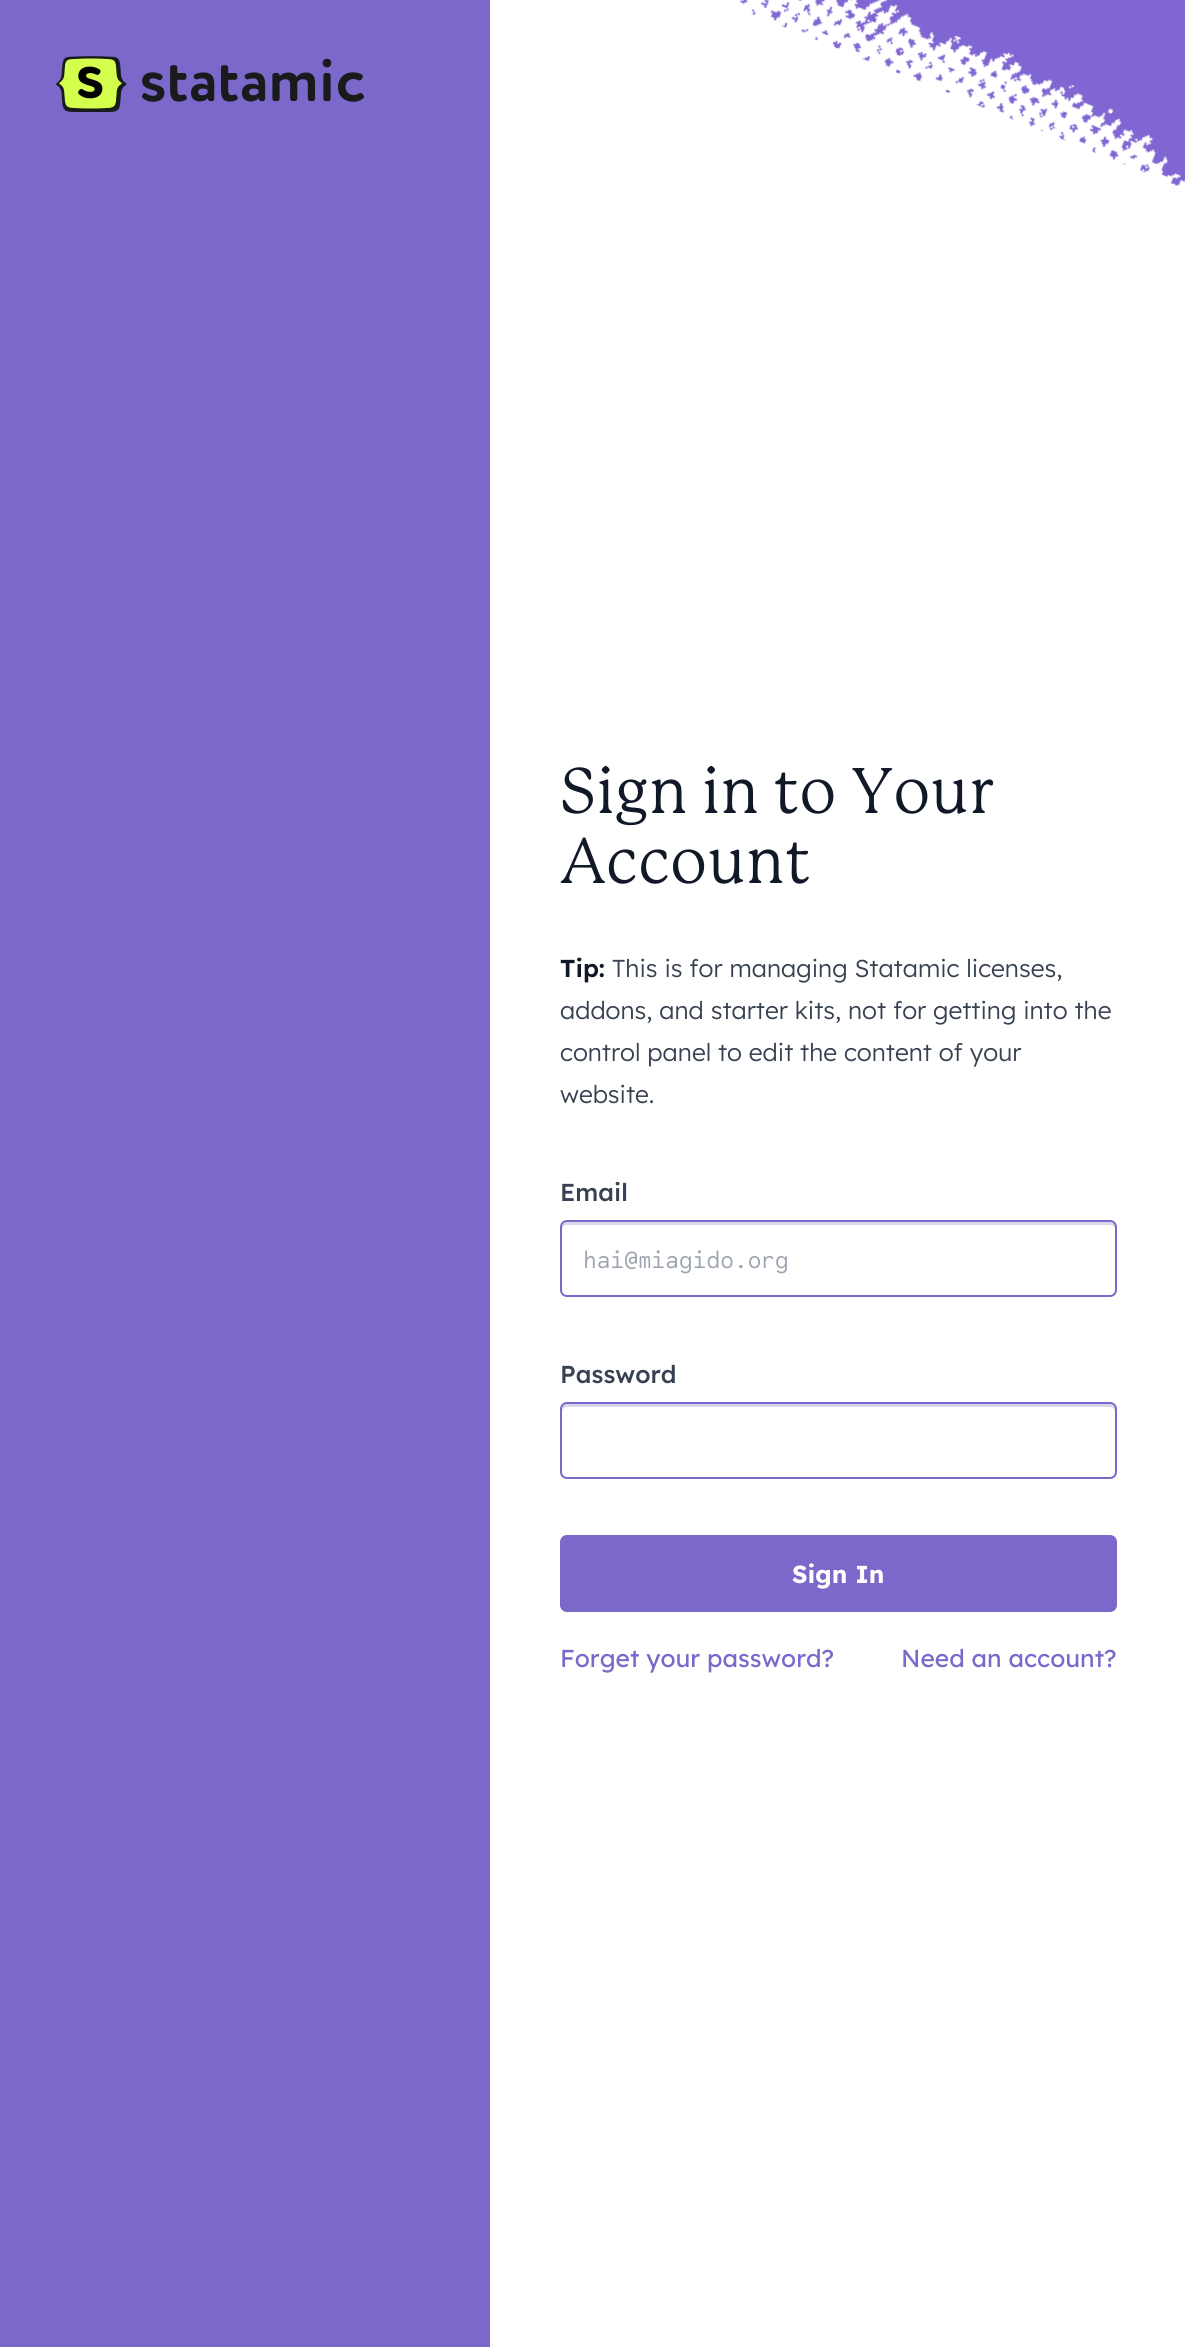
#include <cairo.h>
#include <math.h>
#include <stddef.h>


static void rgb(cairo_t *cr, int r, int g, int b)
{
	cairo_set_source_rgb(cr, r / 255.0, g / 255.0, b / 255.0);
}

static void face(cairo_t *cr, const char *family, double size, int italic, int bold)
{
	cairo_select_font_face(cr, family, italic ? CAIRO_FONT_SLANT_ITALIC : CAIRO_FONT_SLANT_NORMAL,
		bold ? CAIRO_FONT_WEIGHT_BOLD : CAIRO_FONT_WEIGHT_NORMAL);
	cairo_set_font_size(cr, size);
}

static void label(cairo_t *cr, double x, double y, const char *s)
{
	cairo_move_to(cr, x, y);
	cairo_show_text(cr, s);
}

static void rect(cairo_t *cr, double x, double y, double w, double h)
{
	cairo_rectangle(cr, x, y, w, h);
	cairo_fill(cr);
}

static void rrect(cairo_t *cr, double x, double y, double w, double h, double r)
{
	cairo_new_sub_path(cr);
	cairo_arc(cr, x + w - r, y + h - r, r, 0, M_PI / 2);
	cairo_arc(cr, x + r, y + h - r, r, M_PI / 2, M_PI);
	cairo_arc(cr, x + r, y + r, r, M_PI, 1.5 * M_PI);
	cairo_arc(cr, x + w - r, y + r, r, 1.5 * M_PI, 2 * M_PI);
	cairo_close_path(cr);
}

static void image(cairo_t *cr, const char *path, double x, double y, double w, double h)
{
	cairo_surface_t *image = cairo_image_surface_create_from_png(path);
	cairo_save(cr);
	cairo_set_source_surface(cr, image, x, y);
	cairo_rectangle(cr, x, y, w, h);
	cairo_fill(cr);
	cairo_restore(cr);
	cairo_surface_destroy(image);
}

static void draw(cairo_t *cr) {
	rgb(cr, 255, 255, 255);
	cairo_paint(cr);
	image(cr, "image0.png", 718, 0, 467, 186);
	rgb(cr, 124, 103, 203);
	rect(cr, 0, 0, 490, 2347);
	image(cr, "image1.png", 56, 56, 308, 56);
	face(cr, "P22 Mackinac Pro", 63, 0, 0);
	rgb(cr, 17, 24, 39);
	label(cr, 560, 813, "Sign in to Your");
	label(cr, 560, 883, "Account");
	face(cr, "Lexend SemiBold", 24.5, 0, 0);
	label(cr, 560, 977, "Tip:");
	face(cr, "Lexend Light", 24.5, 0, 0);
	rgb(cr, 55, 65, 81);
	label(cr, 612, 977, "This is for managing Statamic licenses,");
	label(cr, 560, 1019, "addons, and starter kits, not for getting into the");
	label(cr, 560, 1061, "control panel to edit the content of your");
	label(cr, 560, 1103, "website.");
	face(cr, "Lexend Medium", 24.5, 0, 0);
	label(cr, 560, 1201, "Email");
	rgb(cr, 219, 215, 234);
	cairo_new_path(cr);
	cairo_move_to(cr, 567, 1225);
	cairo_line_to(cr, 1110, 1225);
	cairo_curve_to(cr, 1112, 1225, 1115, 1227, 1115, 1230);
	cairo_line_to(cr, 1115, 1227);
	cairo_curve_to(cr, 1115, 1224, 1113, 1222, 1110, 1222);
	cairo_line_to(cr, 567, 1222);
	cairo_curve_to(cr, 564, 1222, 562, 1224, 562, 1227);
	cairo_line_to(cr, 562, 1230);
	cairo_curve_to(cr, 562, 1227, 564, 1225, 567, 1225);
	cairo_close_path(cr);
	cairo_fill(cr);
	rrect(cr, 561, 1221, 555, 75, 6);
	rgb(cr, 124, 103, 203);
	cairo_stroke(cr);
	face(cr, "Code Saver", 24.5, 0, 0);
	rgb(cr, 156, 163, 175);
	label(cr, 583, 1268, "hai@miagido.org");
	face(cr, "Lexend Medium", 24.5, 0, 0);
	rgb(cr, 55, 65, 81);
	label(cr, 560, 1383, "Password");
	rgb(cr, 219, 215, 234);
	cairo_new_path(cr);
	cairo_move_to(cr, 567, 1407);
	cairo_line_to(cr, 1110, 1407);
	cairo_curve_to(cr, 1112, 1407, 1115, 1409, 1115, 1412);
	cairo_line_to(cr, 1115, 1409);
	cairo_curve_to(cr, 1115, 1406, 1113, 1404, 1110, 1404);
	cairo_line_to(cr, 567, 1404);
	cairo_curve_to(cr, 564, 1404, 562, 1406, 562, 1409);
	cairo_line_to(cr, 562, 1412);
	cairo_curve_to(cr, 562, 1409, 564, 1407, 567, 1407);
	cairo_close_path(cr);
	cairo_fill(cr);
	rrect(cr, 561, 1403, 555, 75, 6);
	rgb(cr, 124, 103, 203);
	cairo_stroke(cr);
	rrect(cr, 560, 1535, 557, 77, 7);
	cairo_fill(cr);
	face(cr, "Lexend", 24.5, 0, 1);
	rgb(cr, 255, 255, 255);
	label(cr, 792, 1583, "Sign In");
	face(cr, "Lexend", 24.5, 0, 0);
	rgb(cr, 124, 103, 203);
	label(cr, 560, 1667, "Forget your password?");
	label(cr, 901, 1667, "Need an account?");
}

int main(void) {
	cairo_surface_t *surface = cairo_image_surface_create(CAIRO_FORMAT_RGB24, 1185, 2347);
	cairo_t *cr = cairo_create(surface);
	cairo_font_options_t *options = cairo_font_options_create();
	cairo_font_options_set_hint_metrics(options, CAIRO_HINT_METRICS_OFF);
	cairo_font_options_set_hint_style(options, CAIRO_HINT_STYLE_NONE);
	cairo_set_font_options(cr, options);
	cairo_set_miter_limit(cr, 4);
	draw(cr);
	cairo_surface_write_to_png(surface, "render.png");
	cairo_font_options_destroy(options);
	cairo_destroy(cr);
	cairo_surface_destroy(surface);
	return 0;
}
